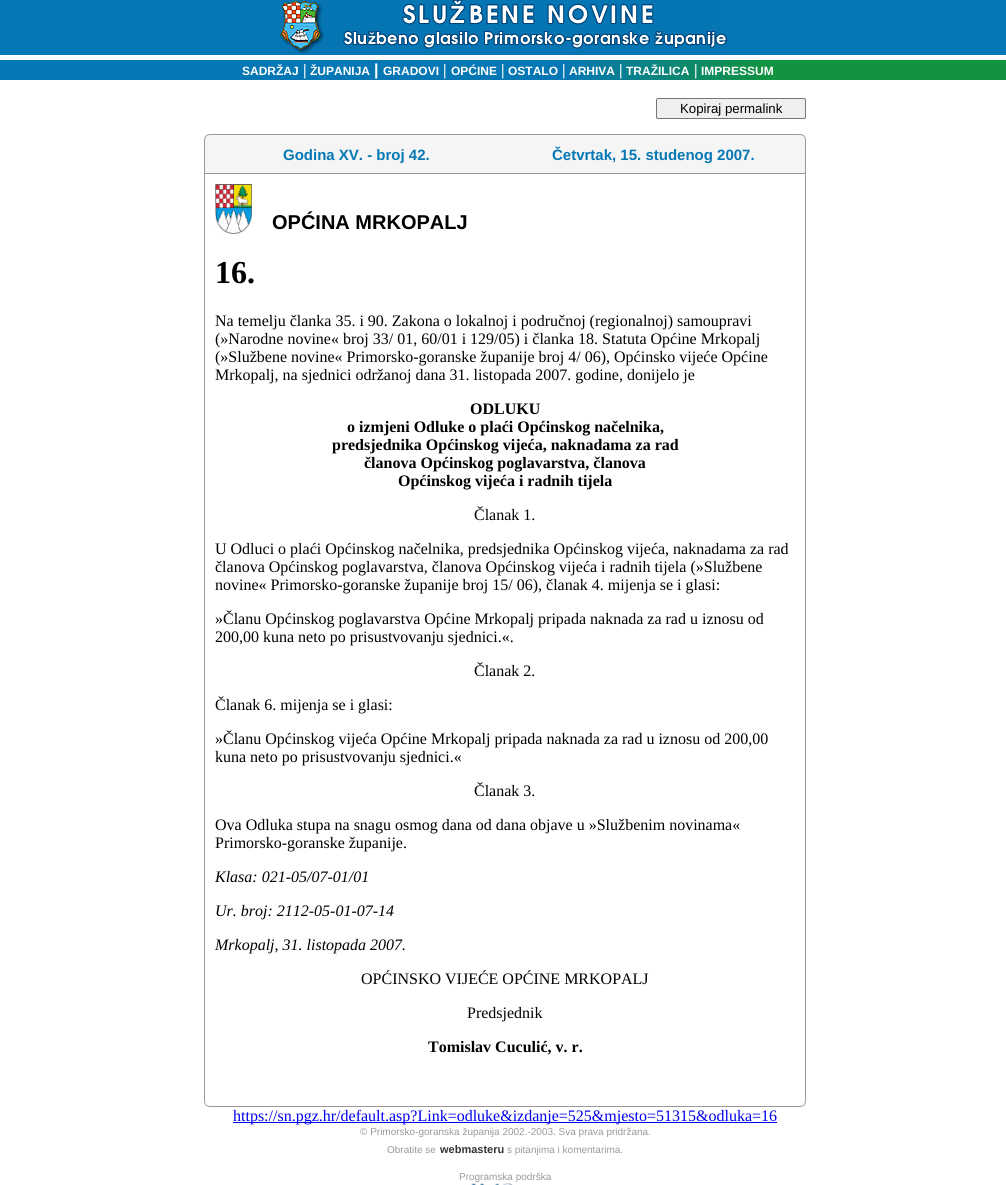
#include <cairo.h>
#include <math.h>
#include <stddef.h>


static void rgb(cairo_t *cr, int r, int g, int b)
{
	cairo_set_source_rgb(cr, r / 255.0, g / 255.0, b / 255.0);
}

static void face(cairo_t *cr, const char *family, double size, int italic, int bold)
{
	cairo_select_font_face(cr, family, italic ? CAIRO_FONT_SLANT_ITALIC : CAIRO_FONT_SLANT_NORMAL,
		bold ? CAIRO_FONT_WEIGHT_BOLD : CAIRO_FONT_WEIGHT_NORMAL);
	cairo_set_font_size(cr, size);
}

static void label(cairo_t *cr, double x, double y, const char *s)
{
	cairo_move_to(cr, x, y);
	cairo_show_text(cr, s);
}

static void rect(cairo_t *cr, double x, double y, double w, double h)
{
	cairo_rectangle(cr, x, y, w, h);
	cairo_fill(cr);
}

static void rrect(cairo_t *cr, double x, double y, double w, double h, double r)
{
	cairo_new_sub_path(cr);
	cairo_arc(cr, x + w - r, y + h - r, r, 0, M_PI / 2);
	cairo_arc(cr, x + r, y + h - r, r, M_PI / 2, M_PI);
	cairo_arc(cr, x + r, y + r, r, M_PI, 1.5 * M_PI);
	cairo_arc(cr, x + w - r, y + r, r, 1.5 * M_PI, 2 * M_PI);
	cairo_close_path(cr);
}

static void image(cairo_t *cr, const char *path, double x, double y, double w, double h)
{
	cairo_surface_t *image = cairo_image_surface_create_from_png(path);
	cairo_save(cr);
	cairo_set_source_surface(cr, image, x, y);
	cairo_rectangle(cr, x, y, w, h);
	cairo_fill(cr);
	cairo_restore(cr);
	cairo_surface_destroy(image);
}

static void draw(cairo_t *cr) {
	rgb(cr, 255, 255, 255);
	cairo_paint(cr);
	rgb(cr, 5, 119, 180);
	rect(cr, 0, 0, 1006, 55);
	image(cr, "image0.png", 280, 0, 447, 53);
	rect(cr, 0, 60, 201, 20);
	image(cr, "image1.png", 201, 60, 604, 20);
	face(cr, "Liberation Sans", 12, 0, 1);
	rgb(cr, 255, 255, 255);
	label(cr, 242, 75, "SADRŽAJ");
	face(cr, "Liberation Serif", 16, 0, 1);
	label(cr, 303, 75, "|");
	face(cr, "Liberation Sans", 12, 0, 1);
	label(cr, 310, 75, "ŽUPANIJA");
	face(cr, "Liberation Sans", 16, 0, 1);
	label(cr, 374, 75, "|");
	face(cr, "Liberation Sans", 12, 0, 1);
	label(cr, 383, 75, "GRADOVI");
	face(cr, "Liberation Serif", 16, 0, 1);
	label(cr, 443, 75, "|");
	face(cr, "Liberation Sans", 12, 0, 1);
	label(cr, 451, 75, "OPĆINE");
	face(cr, "Liberation Serif", 16, 0, 1);
	label(cr, 501, 75, "|");
	face(cr, "Liberation Sans", 12, 0, 1);
	label(cr, 508, 75, "OSTALO");
	face(cr, "Liberation Serif", 16, 0, 1);
	label(cr, 562, 75, "|");
	face(cr, "Liberation Sans", 12, 0, 1);
	label(cr, 569, 75, "ARHIVA");
	face(cr, "Liberation Serif", 16, 0, 1);
	label(cr, 619, 75, "|");
	face(cr, "Liberation Sans", 12, 0, 1);
	label(cr, 626, 75, "TRAŽILICA");
	face(cr, "Liberation Serif", 16, 0, 1);
	label(cr, 694, 75, "|");
	face(cr, "Liberation Sans", 12, 0, 1);
	label(cr, 701, 75, "IMPRESSUM");
	rgb(cr, 17, 147, 63);
	rect(cr, 805, 60, 201, 20);
	rgb(cr, 239, 239, 239);
	rrect(cr, 656.5, 98.5, 149, 20, 1.5);
	cairo_fill_preserve(cr);
	rgb(cr, 118, 118, 118);
	cairo_set_line_width(cr, 1);
	cairo_stroke(cr);
	face(cr, "Liberation Sans", 13.25, 0, 0);
	rgb(cr, 0, 0, 0);
	label(cr, 680, 113, "Kopiraj permalink");
	image(cr, "image2.png", 204, 134, 7, 7);
	rgb(cr, 153, 153, 153);
	rect(cr, 211, 134, 588, 1);
	image(cr, "image3.png", 799, 134, 7, 7);
	rgb(cr, 245, 245, 245);
	rect(cr, 211, 135, 588, 6);
	rgb(cr, 153, 153, 153);
	rect(cr, 204, 141, 1, 32);
	rgb(cr, 245, 245, 245);
	rect(cr, 205, 141, 600, 32);
	face(cr, "Liberation Sans", 15, 0, 1);
	rgb(cr, 5, 119, 180);
	label(cr, 283, 160, "Godina XV. - broj 42.");
	label(cr, 552, 160, "Četvrtak, 15. studenog 2007.");
	rgb(cr, 153, 153, 153);
	rect(cr, 805, 141, 1, 32);
	rect(cr, 204, 173, 602, 1);
	rect(cr, 204, 174, 1, 926);
	image(cr, "image4.png", 215, 184, 37, 50);
	face(cr, "Liberation Sans", 20, 0, 1);
	rgb(cr, 0, 0, 0);
	label(cr, 272, 229, "OPĆINA MRKOPALJ");
	face(cr, "Liberation Serif", 32, 0, 1);
	label(cr, 215, 283, "16.");
	face(cr, "Liberation Serif", 16, 0, 0);
	label(cr, 215, 326, "Na temelju članka 35. i 90. Zakona o lokalnoj i područnoj (regionalnoj) samoupravi");
	label(cr, 215, 344, "(»Narodne novine« broj 33/ 01, 60/01 i 129/05) i članka 18. Statuta Općine Mrkopalj");
	label(cr, 215, 362, "(»Službene novine« Primorsko-goranske županije broj 4/ 06), Općinsko vijeće Općine");
	label(cr, 215, 380, "Mrkopalj, na sjednici održanoj dana 31. listopada 2007. godine, donijelo je");
	face(cr, "Liberation Serif", 16, 0, 1);
	label(cr, 470, 414, "ODLUKU");
	label(cr, 347, 432, "o izmjeni Odluke o plaći Općinskog načelnika,");
	label(cr, 332, 450, "predsjednika Općinskog vijeća, naknadama za rad");
	label(cr, 364, 468, "članova Općinskog poglavarstva, članova");
	label(cr, 398, 486, "Općinskog vijeća i radnih tijela");
	face(cr, "Liberation Serif", 16, 0, 0);
	label(cr, 474, 520, "Članak 1.");
	label(cr, 215, 554, "U Odluci o plaći Općinskog načelnika, predsjednika Općinskog vijeća, naknadama za rad");
	label(cr, 215, 572, "članova Općinskog poglavarstva, članova Općinskog vijeća i radnih tijela (»Službene");
	label(cr, 215, 590, "novine« Primorsko-goranske županije broj 15/ 06), članak 4. mijenja se i glasi:");
	label(cr, 215, 624, "»Članu Općinskog poglavarstva Općine Mrkopalj pripada naknada za rad u iznosu od");
	label(cr, 215, 642, "200,00 kuna neto po prisustvovanju sjednici.«.");
	label(cr, 474, 676, "Članak 2.");
	label(cr, 215, 710, "Članak 6. mijenja se i glasi:");
	label(cr, 215, 744, "»Članu Općinskog vijeća Općine Mrkopalj pripada naknada za rad u iznosu od 200,00");
	label(cr, 215, 762, "kuna neto po prisustvovanju sjednici.«");
	label(cr, 474, 796, "Članak 3.");
	label(cr, 215, 830, "Ova Odluka stupa na snagu osmog dana od dana objave u »Službenim novinama«");
	label(cr, 215, 848, "Primorsko-goranske županije.");
	face(cr, "Liberation Serif", 16, 1, 0);
	label(cr, 215, 882, "Klasa: 021-05/07-01/01");
	label(cr, 215, 916, "Ur. broj: 2112-05-01-07-14");
	label(cr, 215, 950, "Mrkopalj, 31. listopada 2007.");
	face(cr, "Liberation Serif", 16, 0, 0);
	label(cr, 361, 984, "OPĆINSKO VIJEĆE OPĆINE MRKOPALJ");
	label(cr, 467, 1018, "Predsjednik");
	face(cr, "Liberation Serif", 16, 0, 1);
	label(cr, 428, 1052, "Tomislav Cuculić, v. r.");
	rgb(cr, 153, 153, 153);
	rect(cr, 805, 174, 1, 926);
	image(cr, "image5.png", 204, 1100, 7, 7);
	image(cr, "image6.png", 799, 1100, 7, 7);
	rect(cr, 211, 1106, 588, 1);
	rgb(cr, 0, 0, 238);
	rect(cr, 233, 1122, 544, 1);
	face(cr, "Liberation Serif", 16, 0, 0);
	label(cr, 233, 1121, "https://sn.pgz.hr/default.asp?Link=odluke&izdanje=525&mjesto=51315&odluka=16");
	face(cr, "Liberation Sans", 10, 0, 0);
	rgb(cr, 153, 153, 153);
	label(cr, 360, 1135, "© Primorsko-goranska županija 2002.-2003. Sva prava pridržana.");
	label(cr, 387, 1153, "Obratite se");
	face(cr, "Liberation Sans", 11, 0, 1);
	rgb(cr, 51, 51, 51);
	label(cr, 440, 1153, "webmasteru");
	face(cr, "Liberation Sans", 10, 0, 0);
	rgb(cr, 153, 153, 153);
	label(cr, 507, 1153, "s pitanjima i komentarima.");
	label(cr, 459, 1180, "Programska podrška");
	image(cr, "image7.png", 471, 1183, 42, 2);
}

int main(void) {
	cairo_surface_t *surface = cairo_image_surface_create(CAIRO_FORMAT_RGB24, 1006, 1185);
	cairo_t *cr = cairo_create(surface);
	cairo_font_options_t *options = cairo_font_options_create();
	cairo_font_options_set_hint_metrics(options, CAIRO_HINT_METRICS_OFF);
	cairo_font_options_set_hint_style(options, CAIRO_HINT_STYLE_NONE);
	cairo_set_font_options(cr, options);
	cairo_set_miter_limit(cr, 4);
	draw(cr);
	cairo_surface_write_to_png(surface, "render.png");
	cairo_font_options_destroy(options);
	cairo_destroy(cr);
	cairo_surface_destroy(surface);
	return 0;
}
